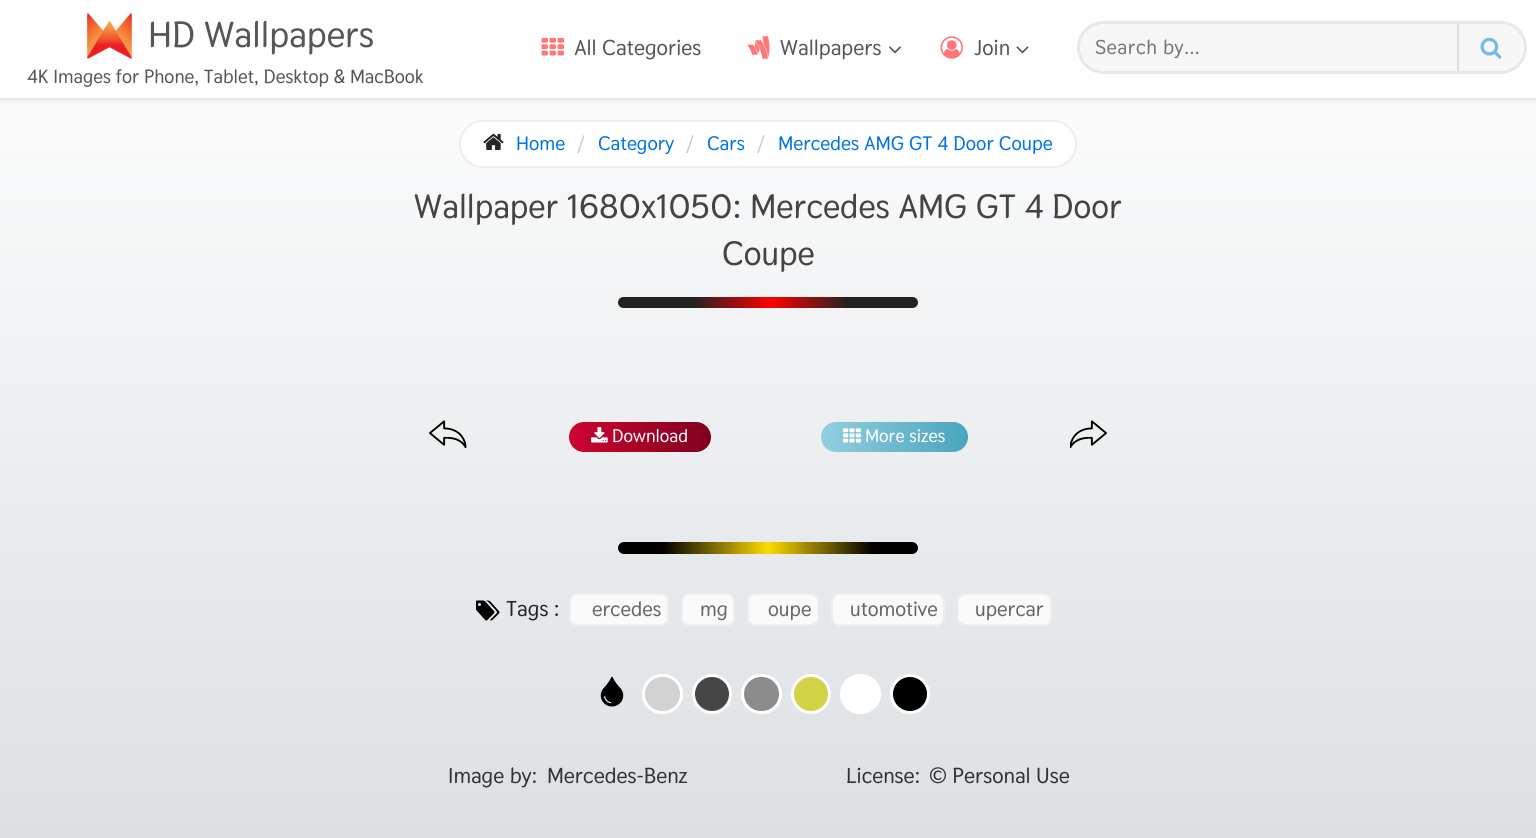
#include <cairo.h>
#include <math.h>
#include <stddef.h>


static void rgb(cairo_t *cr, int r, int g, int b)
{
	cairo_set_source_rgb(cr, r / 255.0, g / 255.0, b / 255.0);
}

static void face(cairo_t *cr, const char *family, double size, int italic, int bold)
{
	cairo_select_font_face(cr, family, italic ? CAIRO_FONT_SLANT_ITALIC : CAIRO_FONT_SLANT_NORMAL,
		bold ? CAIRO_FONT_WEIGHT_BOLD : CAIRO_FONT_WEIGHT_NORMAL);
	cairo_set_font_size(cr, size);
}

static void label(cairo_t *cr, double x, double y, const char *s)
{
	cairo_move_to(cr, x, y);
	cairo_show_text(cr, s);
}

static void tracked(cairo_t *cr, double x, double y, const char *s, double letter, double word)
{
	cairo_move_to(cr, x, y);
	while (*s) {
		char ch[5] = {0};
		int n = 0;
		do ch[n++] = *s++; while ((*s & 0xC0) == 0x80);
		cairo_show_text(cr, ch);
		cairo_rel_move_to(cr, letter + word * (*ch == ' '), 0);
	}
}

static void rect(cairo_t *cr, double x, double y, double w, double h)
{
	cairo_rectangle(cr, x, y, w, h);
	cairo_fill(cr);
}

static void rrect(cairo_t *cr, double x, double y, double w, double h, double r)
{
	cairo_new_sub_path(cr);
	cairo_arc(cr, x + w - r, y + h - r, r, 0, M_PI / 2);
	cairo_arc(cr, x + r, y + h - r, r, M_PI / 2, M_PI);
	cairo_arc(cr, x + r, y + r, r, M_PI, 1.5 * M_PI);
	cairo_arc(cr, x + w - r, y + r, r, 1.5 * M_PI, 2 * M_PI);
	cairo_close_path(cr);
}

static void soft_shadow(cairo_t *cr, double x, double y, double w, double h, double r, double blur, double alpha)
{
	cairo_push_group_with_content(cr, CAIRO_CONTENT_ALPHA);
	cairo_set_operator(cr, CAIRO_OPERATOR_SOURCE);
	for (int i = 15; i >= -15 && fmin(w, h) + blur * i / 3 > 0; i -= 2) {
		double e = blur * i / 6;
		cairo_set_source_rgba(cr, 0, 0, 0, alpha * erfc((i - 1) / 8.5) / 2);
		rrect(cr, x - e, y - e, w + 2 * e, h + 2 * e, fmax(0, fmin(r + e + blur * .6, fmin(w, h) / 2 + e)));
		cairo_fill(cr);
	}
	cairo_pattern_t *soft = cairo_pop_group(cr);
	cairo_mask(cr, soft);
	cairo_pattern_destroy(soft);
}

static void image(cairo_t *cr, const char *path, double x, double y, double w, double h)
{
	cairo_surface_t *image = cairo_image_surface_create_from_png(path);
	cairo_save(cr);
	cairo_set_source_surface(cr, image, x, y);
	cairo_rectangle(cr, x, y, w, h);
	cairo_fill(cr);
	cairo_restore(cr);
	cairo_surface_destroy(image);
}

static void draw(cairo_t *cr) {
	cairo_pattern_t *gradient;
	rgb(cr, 255, 255, 255);
	cairo_paint(cr);
	gradient = cairo_pattern_create_linear(768, 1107, 768, 0);
	cairo_pattern_add_color_stop_rgba(gradient, 0, 0.816, 0.839, 0.855, 1);
	cairo_pattern_add_color_stop_rgba(gradient, 1, 1, 1, 1, 1);
	cairo_set_source(cr, gradient);
	cairo_pattern_destroy(gradient);
	rect(cr, 0, 98, 1536, 740);
	rgb(cr, 204, 204, 204);
	soft_shadow(cr, 0, 0, 1536, 98, 0, 4, 1);
	rgb(cr, 254, 254, 254);
	rect(cr, 0, 0, 1536, 98);
	image(cr, "image0.png", 87, 13, 45, 46);
	face(cr, "Thasadith", 36, 0, 1);
	rgb(cr, 86, 86, 86);
	label(cr, 148, 47, "HD Wallpapers");
	face(cr, "Thasadith", 19, 0, 1);
	label(cr, 27, 83, "4K Images for Phone, Tablet, Desktop & MacBook");
	image(cr, "image1.png", 541, 37, 23, 19);
	face(cr, "Thasadith", 21.5, 0, 1);
	label(cr, 574, 55, "All Categories");
	image(cr, "image2.png", 747, 36, 23, 23);
	label(cr, 780, 55, "Wallpapers");
	image(cr, "image3.png", 889, 46, 12, 8);
	image(cr, "image4.png", 940, 36, 23, 23);
	label(cr, 974, 55, "Join");
	image(cr, "image5.png", 1016, 46, 13, 8);
	rgb(cr, 247, 247, 247);
	rrect(cr, 1078.5, 22.5, 447, 50, 25);
	cairo_fill_preserve(cr);
	rgb(cr, 232, 232, 232);
	cairo_set_line_width(cr, 3);
	cairo_stroke(cr);
	face(cr, "Thasadith", 20, 0, 1);
	rgb(cr, 117, 117, 117);
	tracked(cr, 1095, 54, "Search by...", 0.5, 0);
	rgb(cr, 221, 221, 221);
	rect(cr, 1457, 24, 2, 47);
	image(cr, "image6.png", 1480, 37, 22, 22);
	rgb(cr, 255, 255, 255);
	rrect(cr, 460, 121, 616, 46, 23);
	cairo_fill_preserve(cr);
	rgb(cr, 238, 238, 238);
	cairo_set_line_width(cr, 2);
	cairo_stroke(cr);
	image(cr, "image7.png", 483, 133, 21, 17);
	face(cr, "Thasadith", 19.5, 0, 1);
	rgb(cr, 0, 115, 228);
	label(cr, 516, 150, "Home");
	rgb(cr, 204, 204, 204);
	label(cr, 577, 150, "/");
	rgb(cr, 0, 115, 228);
	label(cr, 598, 150, "Category");
	rgb(cr, 204, 204, 204);
	label(cr, 686, 150, "/");
	rgb(cr, 0, 115, 228);
	label(cr, 707, 150, "Cars");
	rgb(cr, 204, 204, 204);
	label(cr, 757, 150, "/");
	rgb(cr, 0, 115, 228);
	label(cr, 778, 150, "Mercedes AMG GT 4 Door Coupe");
	face(cr, "Thasadith", 33.6, 0, 1);
	rgb(cr, 68, 68, 68);
	label(cr, 414, 218, "Wallpaper 1680x1050: Mercedes AMG GT 4 Door");
	label(cr, 722, 265, "Coupe");
	gradient = cairo_pattern_create_linear(618, 302, 918, 302);
	cairo_pattern_add_color_stop_rgba(gradient, 0.25, 0.133, 0.133, 0.133, 1);
	cairo_pattern_add_color_stop_rgba(gradient, 0.51, 1, 0, 0, 1);
	cairo_pattern_add_color_stop_rgba(gradient, 0.77, 0.133, 0.133, 0.133, 1);
	cairo_set_source(cr, gradient);
	cairo_pattern_destroy(gradient);
	rrect(cr, 618, 297, 300, 11, 5.5);
	cairo_fill(cr);
	image(cr, "image8.png", 429, 420, 38, 29);
	gradient = cairo_pattern_create_linear(569, 437, 711, 437);
	cairo_pattern_add_color_stop_rgba(gradient, 0, 0.808, 0.012, 0.196, 1);
	cairo_pattern_add_color_stop_rgba(gradient, 0.44, 0.671, 0.012, 0.165, 1);
	cairo_pattern_add_color_stop_rgba(gradient, 1, 0.502, 0, 0.118, 1);
	cairo_set_source(cr, gradient);
	cairo_pattern_destroy(gradient);
	rrect(cr, 569, 422, 142, 30, 15);
	cairo_fill(cr);
	image(cr, "image9.png", 591, 427, 17, 16);
	face(cr, "Thasadith", 18, 0, 1);
	rgb(cr, 255, 255, 255);
	label(cr, 612, 442, "Download");
	gradient = cairo_pattern_create_linear(821, 437, 968, 437);
	cairo_pattern_add_color_stop_rgba(gradient, 0, 0.576, 0.808, 0.871, 1);
	cairo_pattern_add_color_stop_rgba(gradient, 0.41, 0.459, 0.741, 0.82, 1);
	cairo_pattern_add_color_stop_rgba(gradient, 1, 0.286, 0.647, 0.749, 1);
	cairo_set_source(cr, gradient);
	cairo_pattern_destroy(gradient);
	rrect(cr, 821, 422, 147, 30, 15);
	cairo_fill(cr);
	image(cr, "image10.png", 843, 428, 18, 15);
	rgb(cr, 255, 255, 255);
	label(cr, 865, 442, "More sizes");
	image(cr, "image11.png", 1070, 420, 37, 29);
	gradient = cairo_pattern_create_linear(618, 548, 918, 548);
	cairo_pattern_add_color_stop_rgba(gradient, 0.15, 0, 0, 0, 1);
	cairo_pattern_add_color_stop_rgba(gradient, 0.5, 1, 0.855, 0, 1);
	cairo_pattern_add_color_stop_rgba(gradient, 0.85, 0, 0, 0, 1);
	cairo_set_source(cr, gradient);
	cairo_pattern_destroy(gradient);
	rrect(cr, 618, 542, 300, 12, 6);
	cairo_fill(cr);
	image(cr, "image12.png", 476, 600, 24, 21);
	face(cr, "Thasadith", 21.5, 0, 1);
	rgb(cr, 37, 37, 37);
	label(cr, 506, 616, "Tags :");
	rgb(cr, 250, 250, 250);
	rrect(cr, 570, 594, 98, 31, 7);
	cairo_fill_preserve(cr);
	rgb(cr, 238, 238, 238);
	cairo_stroke(cr);
	face(cr, "Thasadith", 20.5, 0, 1);
	rgb(cr, 102, 102, 102);
	label(cr, 592, 616, "ercedes");
	rgb(cr, 250, 250, 250);
	rrect(cr, 682, 594, 52, 31, 7);
	cairo_fill_preserve(cr);
	rgb(cr, 238, 238, 238);
	cairo_stroke(cr);
	rgb(cr, 102, 102, 102);
	label(cr, 700, 616, "mg");
	rgb(cr, 250, 250, 250);
	rrect(cr, 748, 594, 70, 31, 7);
	cairo_fill_preserve(cr);
	rgb(cr, 238, 238, 238);
	cairo_stroke(cr);
	rgb(cr, 102, 102, 102);
	label(cr, 768, 616, "oupe");
	rgb(cr, 250, 250, 250);
	rrect(cr, 832, 594, 112, 31, 7);
	cairo_fill_preserve(cr);
	rgb(cr, 238, 238, 238);
	cairo_stroke(cr);
	rgb(cr, 102, 102, 102);
	label(cr, 850, 616, "utomotive");
	rgb(cr, 250, 250, 250);
	rrect(cr, 958, 594, 93, 31, 7);
	cairo_fill_preserve(cr);
	rgb(cr, 238, 238, 238);
	cairo_stroke(cr);
	rgb(cr, 102, 102, 102);
	label(cr, 975, 616, "upercar");
	image(cr, "image13.png", 600, 677, 24, 30);
	rgb(cr, 210, 210, 210);
	rrect(cr, 643.5, 675.5, 38, 37, 18.5);
	cairo_fill_preserve(cr);
	rgb(cr, 255, 255, 255);
	cairo_set_line_width(cr, 3);
	cairo_stroke(cr);
	rgb(cr, 70, 70, 70);
	cairo_arc(cr, 712, 694, 18.5, 0, 2 * M_PI);
	cairo_fill_preserve(cr);
	rgb(cr, 255, 255, 255);
	cairo_stroke(cr);
	rgb(cr, 140, 140, 140);
	rrect(cr, 742.5, 675.5, 38, 37, 18.5);
	cairo_fill_preserve(cr);
	rgb(cr, 255, 255, 255);
	cairo_stroke(cr);
	rgb(cr, 210, 210, 70);
	cairo_arc(cr, 811, 694, 18.5, 0, 2 * M_PI);
	cairo_fill_preserve(cr);
	rgb(cr, 255, 255, 255);
	cairo_stroke(cr);
	rrect(cr, 841.5, 675.5, 38, 37, 18.5);
	cairo_fill_preserve(cr);
	cairo_stroke(cr);
	rgb(cr, 0, 0, 0);
	cairo_arc(cr, 910, 694, 18.5, 0, 2 * M_PI);
	cairo_fill_preserve(cr);
	rgb(cr, 255, 255, 255);
	cairo_stroke(cr);
	face(cr, "Thasadith", 21.5, 0, 1);
	rgb(cr, 51, 51, 51);
	label(cr, 448, 783, "Image by:");
	label(cr, 547, 783, "Mercedes-Benz");
	label(cr, 846, 783, "License:");
	label(cr, 929, 783, "© Personal Use");
}

int main(void) {
	cairo_surface_t *surface = cairo_image_surface_create(CAIRO_FORMAT_RGB24, 1536, 838);
	cairo_t *cr = cairo_create(surface);
	cairo_font_options_t *options = cairo_font_options_create();
	cairo_font_options_set_hint_metrics(options, CAIRO_HINT_METRICS_OFF);
	cairo_font_options_set_hint_style(options, CAIRO_HINT_STYLE_NONE);
	cairo_set_font_options(cr, options);
	cairo_set_miter_limit(cr, 4);
	draw(cr);
	cairo_surface_write_to_png(surface, "render.png");
	cairo_font_options_destroy(options);
	cairo_destroy(cr);
	cairo_surface_destroy(surface);
	return 0;
}
